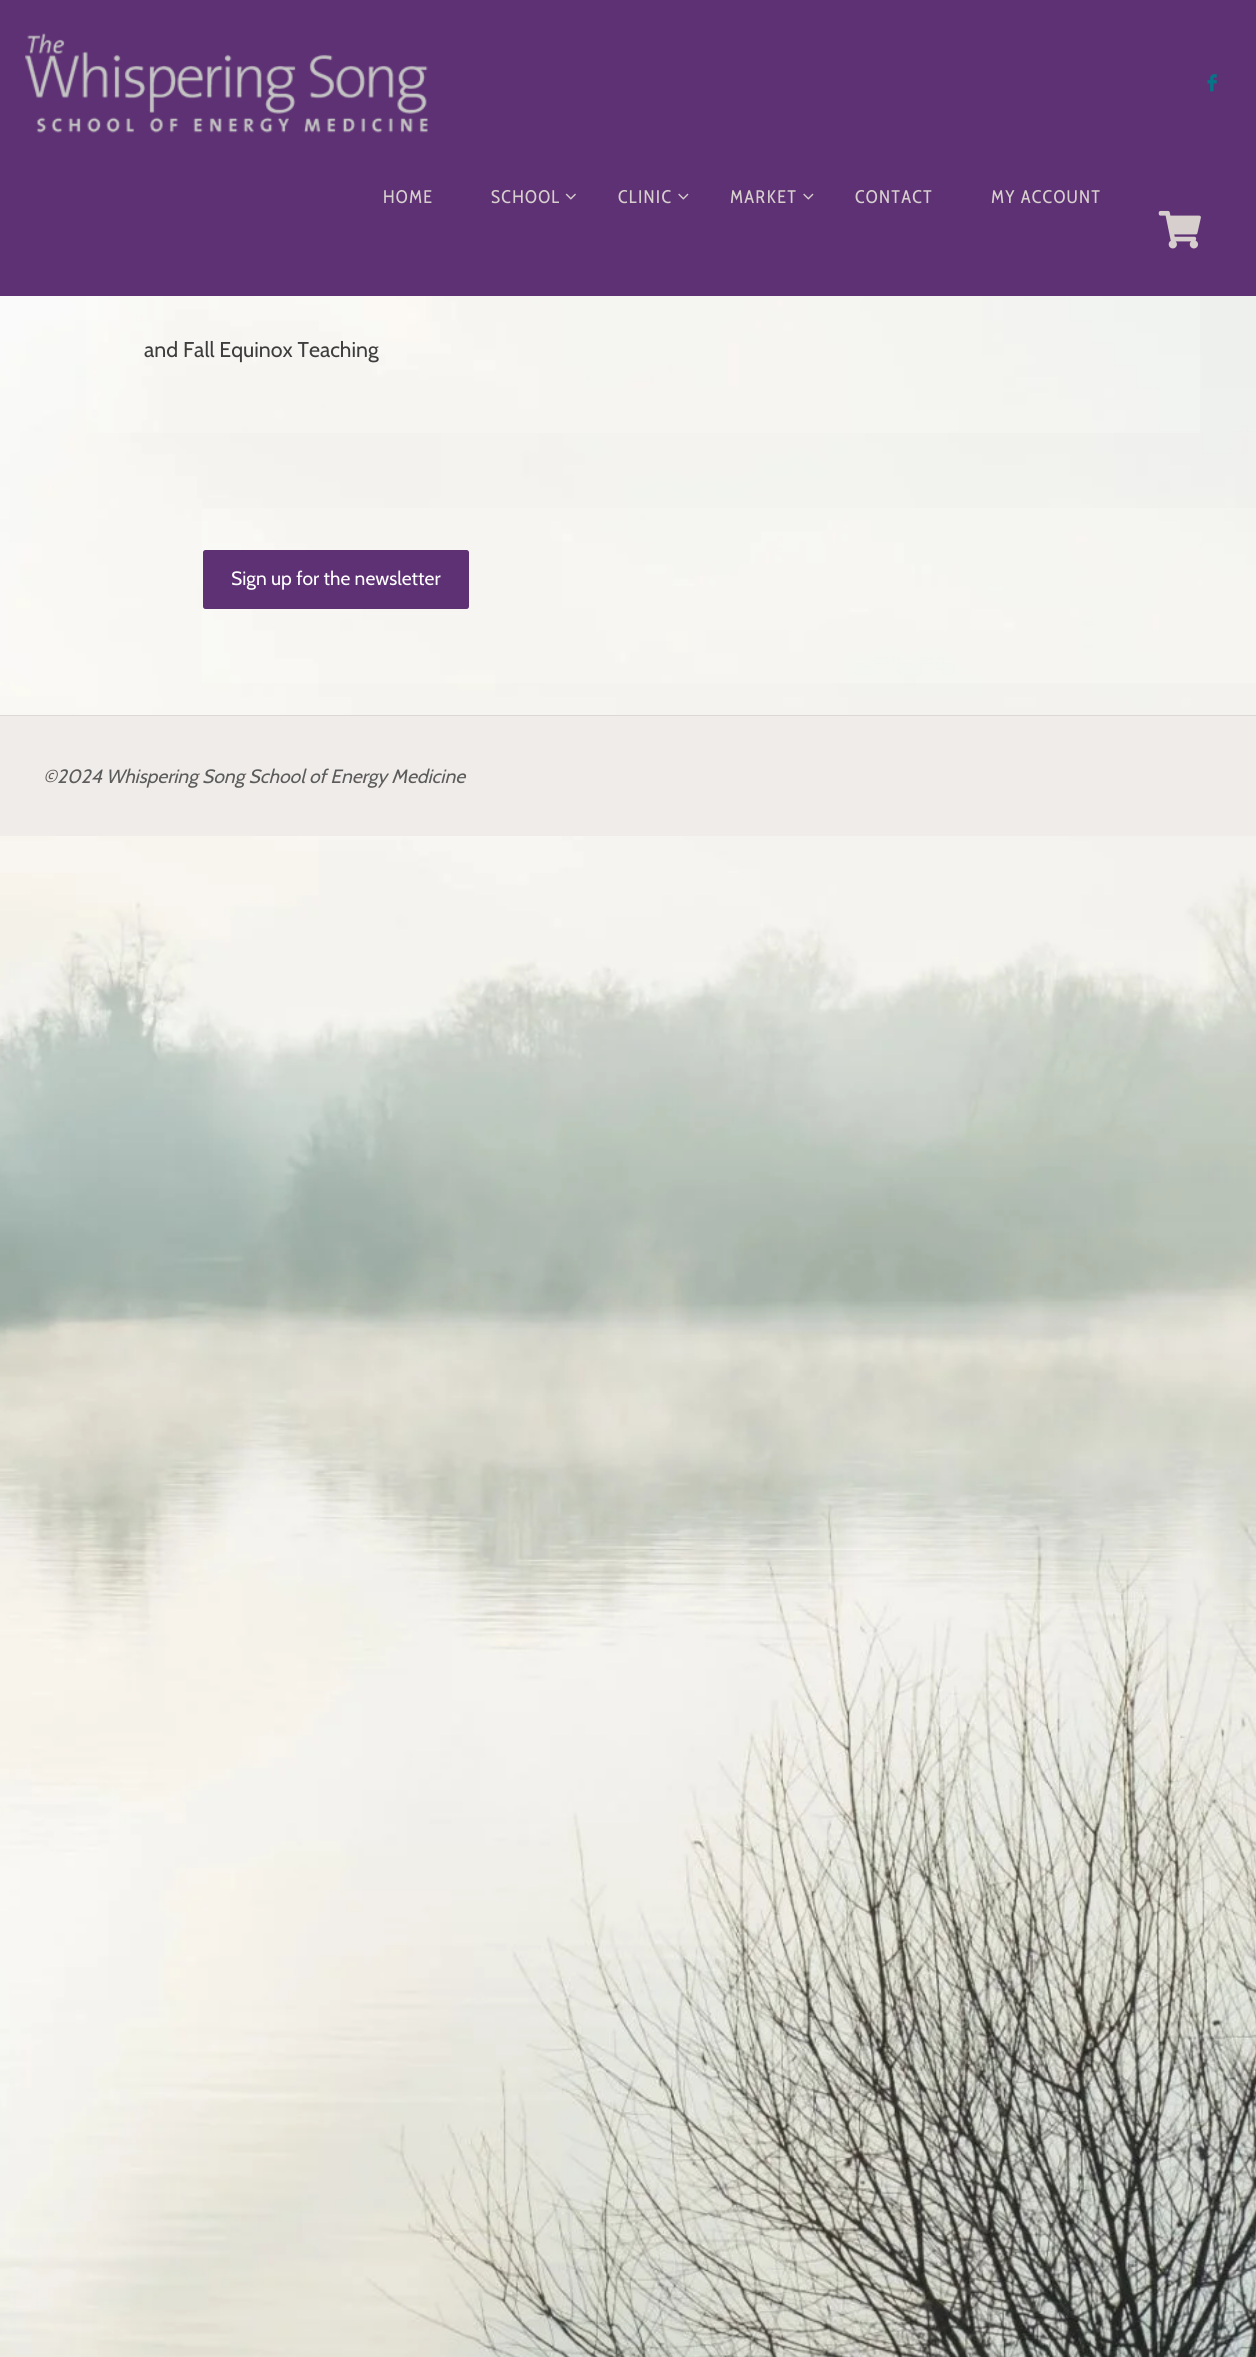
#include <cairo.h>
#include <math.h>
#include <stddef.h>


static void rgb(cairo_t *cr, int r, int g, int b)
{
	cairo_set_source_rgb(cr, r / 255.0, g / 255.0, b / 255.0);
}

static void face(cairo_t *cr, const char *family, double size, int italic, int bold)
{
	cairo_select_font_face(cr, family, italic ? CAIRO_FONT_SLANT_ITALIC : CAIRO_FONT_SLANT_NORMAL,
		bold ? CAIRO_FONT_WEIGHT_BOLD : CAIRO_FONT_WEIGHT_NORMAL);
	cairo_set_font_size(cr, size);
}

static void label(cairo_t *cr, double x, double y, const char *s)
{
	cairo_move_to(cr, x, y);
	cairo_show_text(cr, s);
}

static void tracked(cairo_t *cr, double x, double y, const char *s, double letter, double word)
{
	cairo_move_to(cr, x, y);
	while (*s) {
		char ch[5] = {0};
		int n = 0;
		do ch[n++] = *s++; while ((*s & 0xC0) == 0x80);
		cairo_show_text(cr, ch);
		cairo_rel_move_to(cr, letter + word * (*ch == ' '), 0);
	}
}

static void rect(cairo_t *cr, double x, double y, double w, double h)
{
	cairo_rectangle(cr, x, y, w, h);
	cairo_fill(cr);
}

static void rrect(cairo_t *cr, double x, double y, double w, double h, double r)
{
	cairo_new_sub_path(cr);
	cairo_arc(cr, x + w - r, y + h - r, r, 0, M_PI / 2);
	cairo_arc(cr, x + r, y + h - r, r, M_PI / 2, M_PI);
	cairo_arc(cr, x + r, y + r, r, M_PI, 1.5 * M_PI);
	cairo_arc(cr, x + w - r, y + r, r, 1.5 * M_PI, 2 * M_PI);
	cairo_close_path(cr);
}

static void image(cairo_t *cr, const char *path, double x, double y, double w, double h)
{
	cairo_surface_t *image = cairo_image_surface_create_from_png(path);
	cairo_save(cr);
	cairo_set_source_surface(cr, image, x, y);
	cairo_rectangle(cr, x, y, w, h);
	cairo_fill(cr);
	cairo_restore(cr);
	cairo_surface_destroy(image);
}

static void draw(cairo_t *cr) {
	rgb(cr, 255, 255, 255);
	cairo_paint(cr);
	image(cr, "image0.png", 0, 296, 1256, 2061);
	rgb(cr, 94, 49, 116);
	rect(cr, 0, 0, 1256, 296);
	image(cr, "image1.png", 25, 33, 403, 100);
	image(cr, "image2.png", 1207, 74, 10, 18);
	face(cr, "Cabin Condensed", 18.25, 0, 0);
	rgb(cr, 215, 207, 205);
	tracked(cr, 383, 203, "HOME", 1.25, 0);
	tracked(cr, 491, 203, "SCHOOL", 1.25, 0);
	image(cr, "image3.png", 565, 193, 11, 7);
	tracked(cr, 618, 203, "CLINIC", 1.25, 0);
	image(cr, "image4.png", 678, 193, 11, 7);
	tracked(cr, 730, 203, "MARKET", 1.25, 0);
	image(cr, "image4.png", 803, 193, 11, 7);
	tracked(cr, 855, 203, "CONTACT", 1.25, 0);
	tracked(cr, 991, 203, "MY ACCOUNT", 1.25, 0);
	image(cr, "image5.png", 1158, 210, 43, 39);
	cairo_set_source_rgba(cr, 1, 1, 1, 0.2);
	rect(cr, 86, 296, 1114, 137);
	face(cr, "Cabin", 21.4, 0, 0);
	rgb(cr, 61, 61, 61);
	label(cr, 144, 357, "and Fall Equinox Teaching");
	cairo_set_source_rgba(cr, 1, 1, 1, 0.2);
	rect(cr, 202, 508, 1054, 175);
	rgb(cr, 94, 49, 116);
	rrect(cr, 203, 550, 266, 59, 2.5);
	cairo_fill(cr);
	face(cr, "Cabin", 19.25, 0, 0);
	rgb(cr, 255, 255, 255);
	label(cr, 231, 585, "Sign up for the newsletter");
	rgb(cr, 240, 236, 233);
	rect(cr, 0, 716, 1256, 120);
	rgb(cr, 220, 216, 213);
	rect(cr, 0, 715, 1256, 1);
	face(cr, "Cabin", 19.25, 1, 0);
	rgb(cr, 91, 91, 91);
	label(cr, 43, 783, "©2024 Whispering Song School of Energy Medicine");
}

int main(void) {
	cairo_surface_t *surface = cairo_image_surface_create(CAIRO_FORMAT_RGB24, 1256, 2357);
	cairo_t *cr = cairo_create(surface);
	cairo_font_options_t *options = cairo_font_options_create();
	cairo_font_options_set_hint_metrics(options, CAIRO_HINT_METRICS_OFF);
	cairo_font_options_set_hint_style(options, CAIRO_HINT_STYLE_NONE);
	cairo_set_font_options(cr, options);
	cairo_set_miter_limit(cr, 4);
	draw(cr);
	cairo_surface_write_to_png(surface, "render.png");
	cairo_font_options_destroy(options);
	cairo_destroy(cr);
	cairo_surface_destroy(surface);
	return 0;
}
